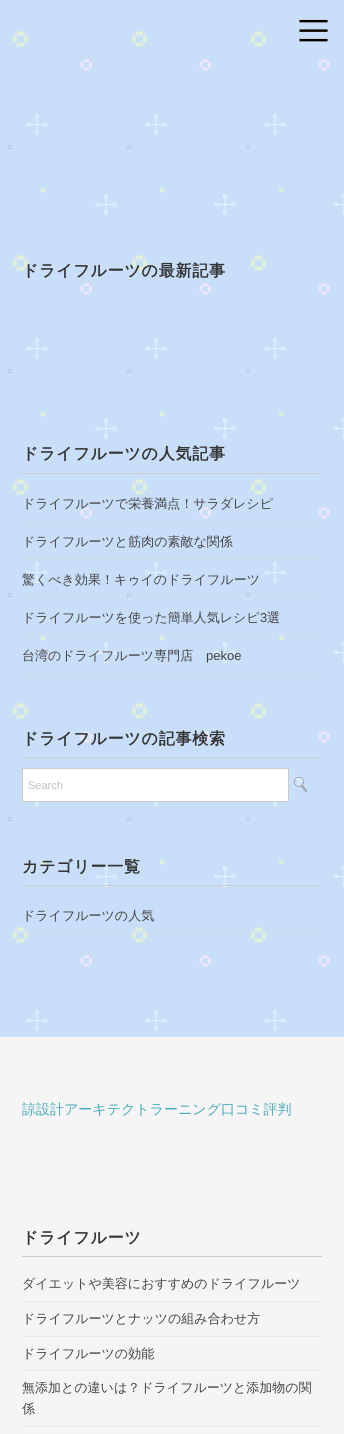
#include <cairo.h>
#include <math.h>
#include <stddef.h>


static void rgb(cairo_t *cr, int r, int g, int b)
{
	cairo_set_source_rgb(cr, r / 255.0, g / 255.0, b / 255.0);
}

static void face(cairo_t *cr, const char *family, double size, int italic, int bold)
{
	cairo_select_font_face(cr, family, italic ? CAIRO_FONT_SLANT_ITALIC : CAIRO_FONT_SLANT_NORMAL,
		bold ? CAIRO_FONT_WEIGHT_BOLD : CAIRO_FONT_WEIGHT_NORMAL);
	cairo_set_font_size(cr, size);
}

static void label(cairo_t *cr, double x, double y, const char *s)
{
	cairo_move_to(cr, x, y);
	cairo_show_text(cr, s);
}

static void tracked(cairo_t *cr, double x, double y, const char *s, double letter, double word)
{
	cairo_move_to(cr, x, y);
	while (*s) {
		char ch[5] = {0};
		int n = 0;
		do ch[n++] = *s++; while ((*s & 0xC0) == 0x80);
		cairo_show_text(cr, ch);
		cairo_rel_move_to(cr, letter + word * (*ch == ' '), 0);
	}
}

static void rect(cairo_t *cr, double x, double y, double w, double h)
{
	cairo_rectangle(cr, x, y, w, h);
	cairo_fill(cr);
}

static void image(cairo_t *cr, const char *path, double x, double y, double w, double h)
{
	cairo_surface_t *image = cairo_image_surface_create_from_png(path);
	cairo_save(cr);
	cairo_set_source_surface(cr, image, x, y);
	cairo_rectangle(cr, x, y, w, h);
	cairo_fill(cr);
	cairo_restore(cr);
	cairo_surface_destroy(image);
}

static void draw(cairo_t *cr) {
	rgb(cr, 255, 255, 255);
	cairo_paint(cr);
	image(cr, "image0.png", 0, 0, 344, 1037);
	image(cr, "image1.png", 299, 19, 29, 23);
	face(cr, "WenQuanYi Zen Hei", 16, 0, 1);
	rgb(cr, 51, 51, 51);
	tracked(cr, 22, 276, "ドライフルーツの最新記事", 0.75, 0);
	rgb(cr, 204, 204, 204);
	rect(cr, 22, 473, 300, 1);
	rgb(cr, 51, 51, 51);
	tracked(cr, 22, 459, "ドライフルーツの人気記事", 0.75, 0);
	cairo_new_path(cr);
	cairo_move_to(cr, 22, 521.5);
	cairo_line_to(cr, 322, 521.5);
	rgb(cr, 221, 221, 221);
	cairo_set_line_width(cr, 1);
	cairo_set_dash(cr, (double[]){1, 1}, 2, 0);
	cairo_stroke(cr);
	face(cr, "WenQuanYi Zen Hei Medium", 13, 0, 0);
	rgb(cr, 68, 68, 68);
	label(cr, 22, 508, "ドライフルーツで栄養満点！サラダレシピ");
	cairo_new_path(cr);
	cairo_move_to(cr, 22, 559.5);
	cairo_line_to(cr, 322, 559.5);
	rgb(cr, 221, 221, 221);
	cairo_stroke(cr);
	rgb(cr, 68, 68, 68);
	label(cr, 22, 546, "ドライフルーツと筋肉の素敵な関係");
	cairo_new_path(cr);
	cairo_move_to(cr, 22, 597.5);
	cairo_line_to(cr, 322, 597.5);
	rgb(cr, 221, 221, 221);
	cairo_stroke(cr);
	rgb(cr, 68, 68, 68);
	label(cr, 22, 584, "驚くべき効果！キゥイのドライフルーツ");
	cairo_new_path(cr);
	cairo_move_to(cr, 22, 635.5);
	cairo_line_to(cr, 322, 635.5);
	rgb(cr, 221, 221, 221);
	cairo_stroke(cr);
	rgb(cr, 68, 68, 68);
	label(cr, 22, 622, "ドライフルーツを使った簡単人気レシピ");
	face(cr, "Liberation Sans", 13, 0, 0);
	label(cr, 260, 622, "3");
	face(cr, "WenQuanYi Zen Hei Medium", 13, 0, 0);
	label(cr, 267, 622, "選");
	cairo_new_path(cr);
	cairo_move_to(cr, 22, 673.5);
	cairo_line_to(cr, 322, 673.5);
	rgb(cr, 221, 221, 221);
	cairo_stroke(cr);
	rgb(cr, 68, 68, 68);
	label(cr, 22, 660, "台湾のドライフルーツ専門店");
	face(cr, "Liberation Sans", 13, 0, 0);
	label(cr, 206, 660, "pekoe");
	rgb(cr, 204, 204, 204);
	rect(cr, 22, 757, 300, 1);
	face(cr, "WenQuanYi Zen Hei", 16, 0, 1);
	rgb(cr, 51, 51, 51);
	tracked(cr, 22, 744, "ドライフルーツの記事検索", 0.75, 0);
	rgb(cr, 255, 255, 255);
	cairo_rectangle(cr, 22.5, 768.5, 266, 33);
	cairo_fill_preserve(cr);
	rgb(cr, 204, 204, 204);
	cairo_set_dash(cr, NULL, 0, 0);
	cairo_stroke(cr);
	face(cr, "Liberation Sans", 11, 0, 0);
	rgb(cr, 192, 192, 192);
	label(cr, 28, 789, "Search");
	image(cr, "image2.png", 294, 777, 13, 15);
	rgb(cr, 204, 204, 204);
	rect(cr, 22, 885, 300, 1);
	face(cr, "WenQuanYi Zen Hei", 16, 0, 1);
	rgb(cr, 51, 51, 51);
	tracked(cr, 22, 872, "カテゴリー一覧", 0.75, 0);
	cairo_new_path(cr);
	cairo_move_to(cr, 22, 933.5);
	cairo_line_to(cr, 322, 933.5);
	rgb(cr, 221, 221, 221);
	cairo_set_dash(cr, (double[]){1, 1}, 2, 0);
	cairo_stroke(cr);
	face(cr, "WenQuanYi Zen Hei Medium", 13, 0, 0);
	rgb(cr, 68, 68, 68);
	label(cr, 22, 920, "ドライフルーツの人気");
	rgb(cr, 245, 245, 245);
	rect(cr, 0, 1037, 344, 397);
	face(cr, "WenQuanYi Zen Hei Medium", 14, 0, 0);
	rgb(cr, 69, 170, 184);
	label(cr, 22, 1114, "諒設計アーキテクトラーニング口コミ評判");
	rgb(cr, 204, 204, 204);
	rect(cr, 22, 1256, 300, 1);
	face(cr, "WenQuanYi Zen Hei", 16, 0, 1);
	rgb(cr, 51, 51, 51);
	tracked(cr, 22, 1243, "ドライフルーツ", 0.75, 0);
	cairo_new_path(cr);
	cairo_move_to(cr, 22, 1301.5);
	cairo_line_to(cr, 322, 1301.5);
	rgb(cr, 221, 221, 221);
	cairo_stroke(cr);
	face(cr, "WenQuanYi Zen Hei Medium", 13, 0, 0);
	rgb(cr, 68, 68, 68);
	label(cr, 22, 1288, "ダイエットや美容におすすめのドライフルーツ");
	cairo_new_path(cr);
	cairo_move_to(cr, 22, 1336.5);
	cairo_line_to(cr, 322, 1336.5);
	rgb(cr, 221, 221, 221);
	cairo_stroke(cr);
	rgb(cr, 68, 68, 68);
	label(cr, 22, 1323, "ドライフルーツとナッツの組み合わせ方");
	cairo_new_path(cr);
	cairo_move_to(cr, 22, 1370.5);
	cairo_line_to(cr, 322, 1370.5);
	rgb(cr, 221, 221, 221);
	cairo_stroke(cr);
	rgb(cr, 68, 68, 68);
	label(cr, 22, 1358, "ドライフルーツの効能");
	cairo_new_path(cr);
	cairo_move_to(cr, 22, 1426.5);
	cairo_line_to(cr, 322, 1426.5);
	rgb(cr, 221, 221, 221);
	cairo_stroke(cr);
	rgb(cr, 68, 68, 68);
	label(cr, 22, 1392, "無添加との違いは？ドライフルーツと添加物の関");
	label(cr, 22, 1413, "係");
}

int main(void) {
	cairo_surface_t *surface = cairo_image_surface_create(CAIRO_FORMAT_RGB24, 344, 1434);
	cairo_t *cr = cairo_create(surface);
	cairo_font_options_t *options = cairo_font_options_create();
	cairo_font_options_set_hint_metrics(options, CAIRO_HINT_METRICS_OFF);
	cairo_font_options_set_hint_style(options, CAIRO_HINT_STYLE_NONE);
	cairo_set_font_options(cr, options);
	cairo_set_miter_limit(cr, 4);
	draw(cr);
	cairo_surface_write_to_png(surface, "render.png");
	cairo_font_options_destroy(options);
	cairo_destroy(cr);
	cairo_surface_destroy(surface);
	return 0;
}
